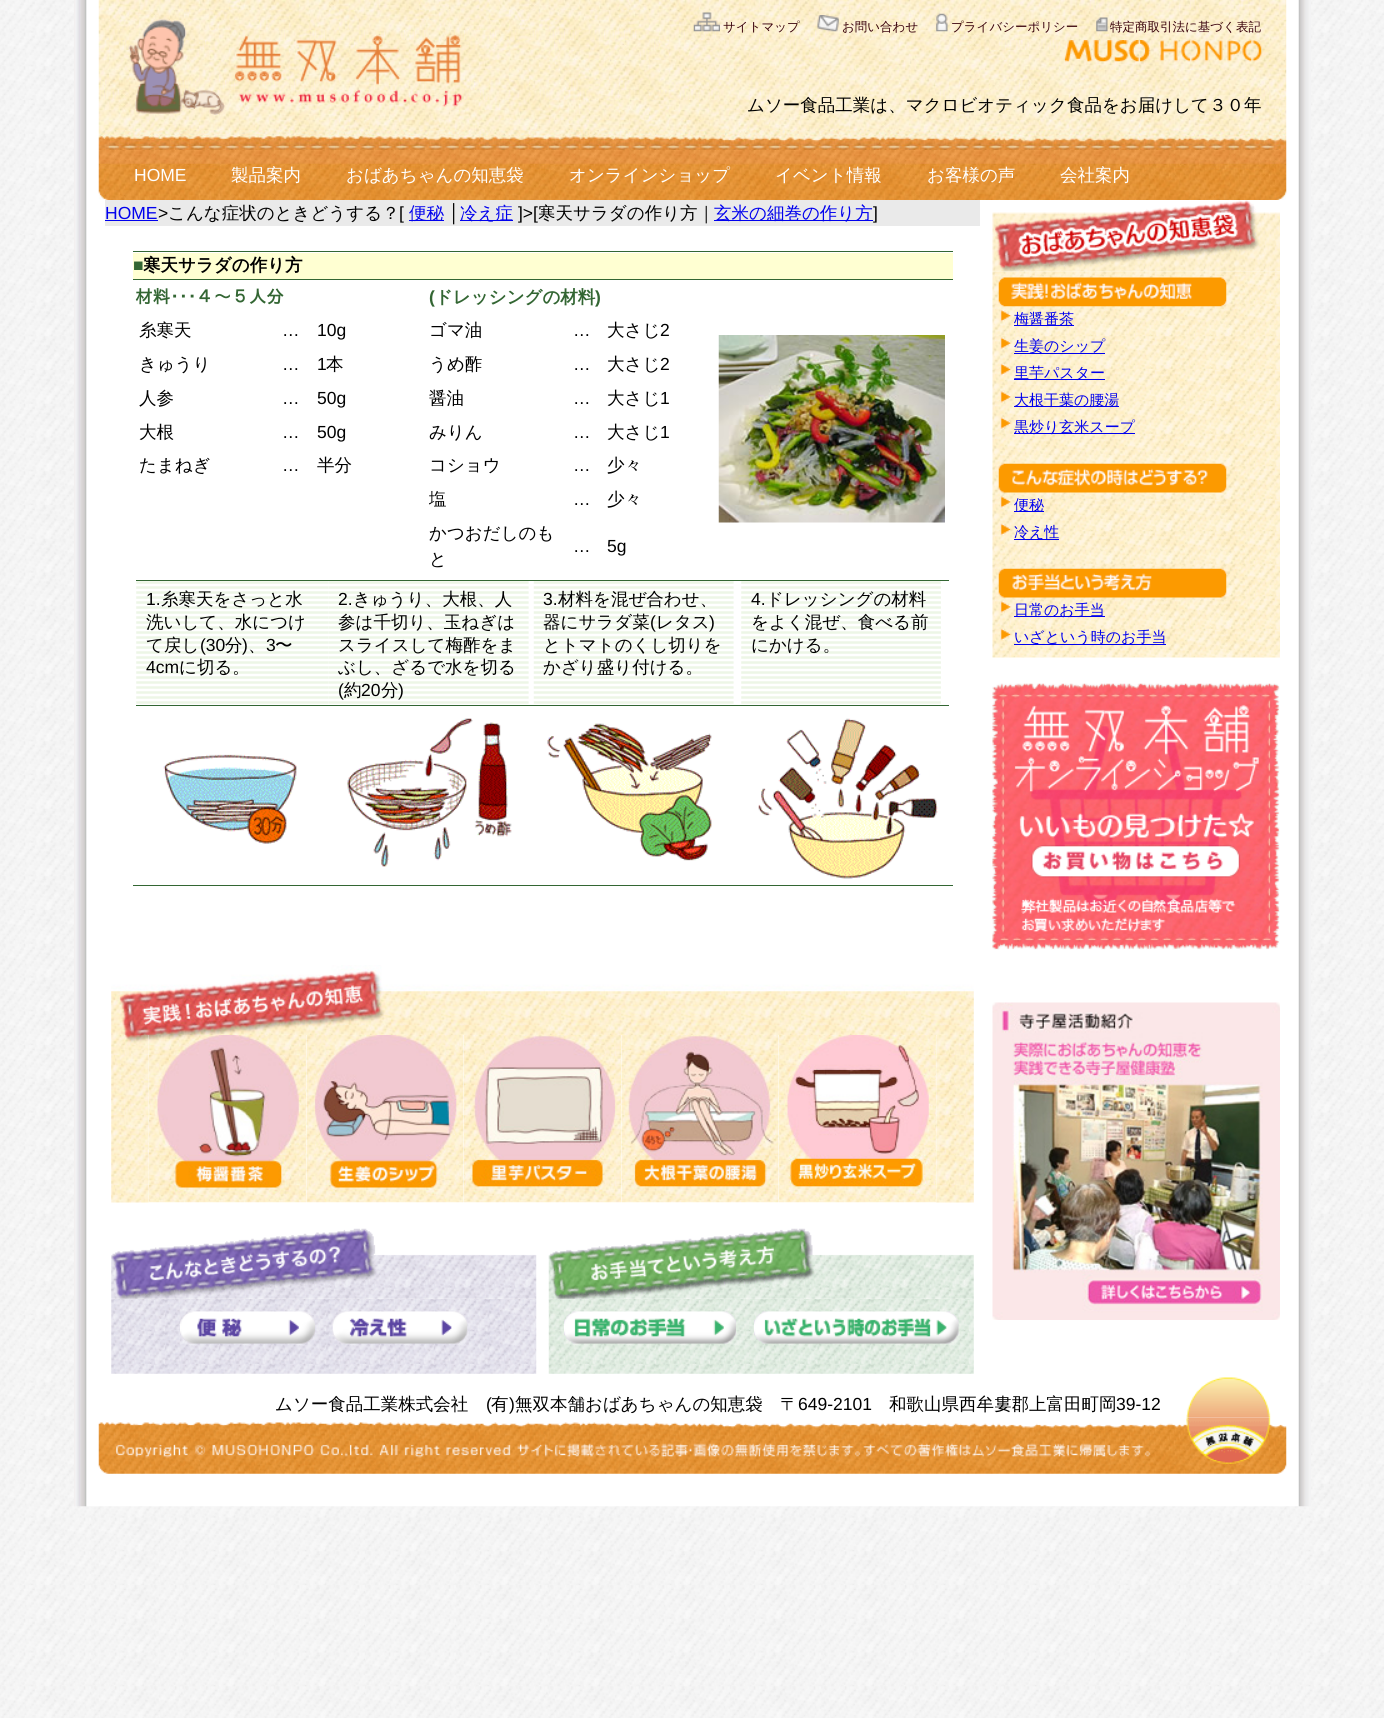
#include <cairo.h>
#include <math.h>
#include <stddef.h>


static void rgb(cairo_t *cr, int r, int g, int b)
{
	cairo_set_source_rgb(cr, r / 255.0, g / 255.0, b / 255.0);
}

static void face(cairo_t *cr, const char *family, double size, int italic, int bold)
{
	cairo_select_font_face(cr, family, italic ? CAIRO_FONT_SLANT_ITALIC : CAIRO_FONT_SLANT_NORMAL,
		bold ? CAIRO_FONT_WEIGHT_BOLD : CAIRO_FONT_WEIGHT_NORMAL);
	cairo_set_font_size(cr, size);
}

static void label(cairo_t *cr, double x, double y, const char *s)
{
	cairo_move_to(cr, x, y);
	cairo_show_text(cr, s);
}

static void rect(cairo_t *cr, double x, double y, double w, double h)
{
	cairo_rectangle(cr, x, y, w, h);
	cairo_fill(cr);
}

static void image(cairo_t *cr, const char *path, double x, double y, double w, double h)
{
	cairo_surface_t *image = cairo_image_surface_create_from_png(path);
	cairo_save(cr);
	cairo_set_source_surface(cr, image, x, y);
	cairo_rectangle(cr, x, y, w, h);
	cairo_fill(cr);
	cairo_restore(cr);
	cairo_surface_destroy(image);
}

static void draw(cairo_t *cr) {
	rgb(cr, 255, 255, 255);
	cairo_paint(cr);
	image(cr, "image0.png", 0, 0, 1384, 1718);
	image(cr, "image1.png", 74, 0, 1237, 1507);
	image(cr, "image2.png", 98, 0, 1189, 150);
	image(cr, "image3.png", 128, 18, 334, 97);
	image(cr, "image4.png", 693, 12, 27, 20);
	face(cr, "WenQuanYi Zen Hei Medium", 12.5, 0, 0);
	rgb(cr, 56, 0, 10);
	label(cr, 723, 31, "サイトマップ");
	image(cr, "image5.png", 817, 15, 22, 17);
	label(cr, 842, 31, "お問い合わせ");
	image(cr, "image6.png", 936, 13, 12, 19);
	label(cr, 951, 31, "プライバシーポリシー");
	image(cr, "image7.png", 1096, 17, 12, 15);
	label(cr, 1110, 31, "特定商取引法に基づく表記");
	image(cr, "image8.png", 1065, 40, 197, 22);
	face(cr, "WenQuanYi Zen Hei Medium", 17.5, 0, 0);
	rgb(cr, 0, 0, 0);
	label(cr, 747, 111, "ムソー食品工業は、マクロビオティック食品をお届けして３０年");
	image(cr, "image9.png", 98, 150, 1189, 50);
	face(cr, "Liberation Sans", 17.5, 0, 0);
	rgb(cr, 255, 255, 255);
	label(cr, 134, 181, "HOME");
	face(cr, "WenQuanYi Zen Hei Medium", 17.5, 0, 0);
	label(cr, 231, 181, "製品案内");
	label(cr, 346, 181, "おばあちゃんの知恵袋");
	label(cr, 569, 181, "オンラインショップ");
	label(cr, 775, 181, "イベント情報");
	label(cr, 927, 181, "お客様の声");
	label(cr, 1060, 181, "会社案内");
	rgb(cr, 234, 234, 234);
	rect(cr, 105, 200, 875, 26);
	face(cr, "Liberation Sans", 17.5, 0, 0);
	rgb(cr, 0, 0, 238);
	label(cr, 105, 219, "HOME");
	rect(cr, 105, 220, 53, 1);
	rgb(cr, 0, 0, 0);
	label(cr, 158, 219, ">");
	face(cr, "WenQuanYi Zen Hei Medium", 17.5, 0, 0);
	label(cr, 168, 219, "こんな症状のときどうする？");
	face(cr, "Liberation Sans", 17.5, 0, 0);
	label(cr, 399, 219, "[");
	rgb(cr, 0, 0, 238);
	rect(cr, 409, 220, 35, 1);
	face(cr, "WenQuanYi Zen Hei Medium", 17.5, 0, 0);
	label(cr, 409, 219, "便秘");
	face(cr, "Liberation Sans", 17.5, 0, 0);
	rgb(cr, 0, 0, 0);
	label(cr, 449, 219, "│");
	rgb(cr, 0, 0, 238);
	rect(cr, 460, 220, 53, 1);
	face(cr, "WenQuanYi Zen Hei Medium", 17.5, 0, 0);
	label(cr, 460, 219, "冷え症");
	face(cr, "Liberation Sans", 17.5, 0, 0);
	rgb(cr, 0, 0, 0);
	label(cr, 518, 219, "]>[");
	face(cr, "WenQuanYi Zen Hei Medium", 17.5, 0, 0);
	label(cr, 538, 219, "寒天サラダの作り方｜");
	rgb(cr, 0, 0, 238);
	rect(cr, 714, 220, 159, 1);
	label(cr, 714, 219, "玄米の細巻の作り方");
	face(cr, "Liberation Sans", 17.5, 0, 0);
	rgb(cr, 0, 0, 0);
	label(cr, 873, 219, "]");
	rgb(cr, 51, 102, 51);
	rect(cr, 133, 251, 820, 1);
	rgb(cr, 255, 255, 210);
	rect(cr, 133, 253, 820, 26);
	rgb(cr, 51, 102, 51);
	label(cr, 133, 271, "■");
	face(cr, "WenQuanYi Zen Hei", 17.5, 0, 1);
	rgb(cr, 0, 0, 0);
	label(cr, 143, 271, "寒天サラダの作り方");
	rgb(cr, 51, 102, 51);
	rect(cr, 133, 279, 820, 1);
	face(cr, "IPAGothic", 17.5, 0, 1);
	label(cr, 135, 303, "材料･･･４〜５人分");
	face(cr, "Liberation Sans", 17.5, 0, 1);
	label(cr, 429, 303, "(");
	face(cr, "WenQuanYi Zen Hei", 17.5, 0, 1);
	label(cr, 435, 303, "ドレッシングの材料");
	face(cr, "Liberation Sans", 17.5, 0, 1);
	label(cr, 595, 303, ")");
	face(cr, "WenQuanYi Zen Hei Medium", 17.5, 0, 0);
	rgb(cr, 0, 0, 0);
	label(cr, 139, 336, "糸寒天");
	face(cr, "Liberation Sans", 17.5, 0, 0);
	label(cr, 282, 336, "…");
	label(cr, 317, 336, "10g");
	face(cr, "WenQuanYi Zen Hei Medium", 17.5, 0, 0);
	label(cr, 429, 336, "ゴマ油");
	face(cr, "Liberation Sans", 17.5, 0, 0);
	label(cr, 573, 336, "…");
	face(cr, "WenQuanYi Zen Hei Medium", 17.5, 0, 0);
	label(cr, 607, 336, "大さじ");
	face(cr, "Liberation Sans", 17.5, 0, 0);
	label(cr, 660, 336, "2");
	face(cr, "WenQuanYi Zen Hei Medium", 17.5, 0, 0);
	label(cr, 139, 370, "きゅうり");
	face(cr, "Liberation Sans", 17.5, 0, 0);
	label(cr, 282, 370, "…");
	label(cr, 317, 370, "1");
	face(cr, "WenQuanYi Zen Hei Medium", 17.5, 0, 0);
	label(cr, 326, 370, "本");
	label(cr, 429, 370, "うめ酢");
	face(cr, "Liberation Sans", 17.5, 0, 0);
	label(cr, 573, 370, "…");
	face(cr, "WenQuanYi Zen Hei Medium", 17.5, 0, 0);
	label(cr, 607, 370, "大さじ");
	face(cr, "Liberation Sans", 17.5, 0, 0);
	label(cr, 660, 370, "2");
	face(cr, "WenQuanYi Zen Hei Medium", 17.5, 0, 0);
	label(cr, 139, 404, "人参");
	face(cr, "Liberation Sans", 17.5, 0, 0);
	label(cr, 282, 404, "…");
	label(cr, 317, 404, "50g");
	face(cr, "WenQuanYi Zen Hei Medium", 17.5, 0, 0);
	label(cr, 429, 404, "醤油");
	face(cr, "Liberation Sans", 17.5, 0, 0);
	label(cr, 573, 404, "…");
	face(cr, "WenQuanYi Zen Hei Medium", 17.5, 0, 0);
	label(cr, 607, 404, "大さじ");
	face(cr, "Liberation Sans", 17.5, 0, 0);
	label(cr, 660, 404, "1");
	face(cr, "WenQuanYi Zen Hei Medium", 17.5, 0, 0);
	label(cr, 139, 438, "大根");
	face(cr, "Liberation Sans", 17.5, 0, 0);
	label(cr, 282, 438, "…");
	label(cr, 317, 438, "50g");
	face(cr, "WenQuanYi Zen Hei Medium", 17.5, 0, 0);
	label(cr, 429, 438, "みりん");
	face(cr, "Liberation Sans", 17.5, 0, 0);
	label(cr, 573, 438, "…");
	face(cr, "WenQuanYi Zen Hei Medium", 17.5, 0, 0);
	label(cr, 607, 438, "大さじ");
	face(cr, "Liberation Sans", 17.5, 0, 0);
	label(cr, 660, 438, "1");
	face(cr, "WenQuanYi Zen Hei Medium", 17.5, 0, 0);
	label(cr, 139, 471, "たまねぎ");
	face(cr, "Liberation Sans", 17.5, 0, 0);
	label(cr, 282, 471, "…");
	face(cr, "WenQuanYi Zen Hei Medium", 17.5, 0, 0);
	label(cr, 317, 471, "半分");
	label(cr, 429, 471, "コショウ");
	face(cr, "Liberation Sans", 17.5, 0, 0);
	label(cr, 573, 471, "…");
	face(cr, "WenQuanYi Zen Hei Medium", 17.5, 0, 0);
	label(cr, 607, 471, "少々");
	label(cr, 429, 505, "塩");
	face(cr, "Liberation Sans", 17.5, 0, 0);
	label(cr, 573, 505, "…");
	face(cr, "WenQuanYi Zen Hei Medium", 17.5, 0, 0);
	label(cr, 607, 505, "少々");
	label(cr, 429, 539, "かつおだしのも");
	label(cr, 429, 565, "と");
	face(cr, "Liberation Sans", 17.5, 0, 0);
	label(cr, 573, 552, "…");
	label(cr, 607, 552, "5g");
	image(cr, "image10.png", 718, 335, 227, 188);
	rgb(cr, 51, 102, 51);
	rect(cr, 136, 580, 813, 1);
	image(cr, "image11.png", 136, 581, 193, 123);
	rgb(cr, 0, 0, 0);
	label(cr, 146, 605, "1.");
	face(cr, "WenQuanYi Zen Hei Medium", 17.5, 0, 0);
	label(cr, 161, 605, "糸寒天をさっと水");
	label(cr, 146, 628, "洗いして、水につけ");
	label(cr, 146, 651, "て戻し");
	face(cr, "Liberation Sans", 17.5, 0, 0);
	label(cr, 200, 651, "(30");
	face(cr, "WenQuanYi Zen Hei Medium", 17.5, 0, 0);
	label(cr, 225, 651, "分");
	face(cr, "Liberation Sans", 17.5, 0, 0);
	label(cr, 242, 651, ")");
	label(cr, 266, 651, "3");
	face(cr, "WenQuanYi Zen Hei Medium", 17.5, 0, 0);
	label(cr, 275, 651, "〜");
	label(cr, 248, 651, "、");
	face(cr, "Liberation Sans", 17.5, 0, 0);
	label(cr, 146, 673, "4cm");
	face(cr, "WenQuanYi Zen Hei Medium", 17.5, 0, 0);
	label(cr, 179, 673, "に切る。");
	image(cr, "image12.png", 329, 581, 200, 123);
	face(cr, "Liberation Sans", 17.5, 0, 0);
	label(cr, 338, 605, "2.");
	face(cr, "WenQuanYi Zen Hei Medium", 17.5, 0, 0);
	label(cr, 353, 605, "きゅうり、大根、人");
	label(cr, 338, 628, "参は千切り、玉ねぎは");
	label(cr, 338, 651, "スライスして梅酢をま");
	label(cr, 338, 673, "ぶし、ざるで水を切る");
	face(cr, "Liberation Sans", 17.5, 0, 0);
	label(cr, 338, 696, "(");
	face(cr, "WenQuanYi Zen Hei Medium", 17.5, 0, 0);
	label(cr, 344, 696, "約");
	face(cr, "Liberation Sans", 17.5, 0, 0);
	label(cr, 361, 696, "20");
	face(cr, "WenQuanYi Zen Hei Medium", 17.5, 0, 0);
	label(cr, 381, 696, "分");
	face(cr, "Liberation Sans", 17.5, 0, 0);
	label(cr, 398, 696, ")");
	image(cr, "image13.png", 533, 581, 201, 123);
	label(cr, 543, 605, "3.");
	face(cr, "WenQuanYi Zen Hei Medium", 17.5, 0, 0);
	label(cr, 558, 605, "材料を混ぜ合わせ、");
	label(cr, 543, 628, "器にサラダ菜");
	face(cr, "Liberation Sans", 17.5, 0, 0);
	label(cr, 650, 628, "(");
	face(cr, "WenQuanYi Zen Hei Medium", 17.5, 0, 0);
	label(cr, 656, 628, "レタス");
	face(cr, "Liberation Sans", 17.5, 0, 0);
	label(cr, 709, 628, ")");
	face(cr, "WenQuanYi Zen Hei Medium", 17.5, 0, 0);
	label(cr, 543, 651, "とトマトのくし切りを");
	label(cr, 543, 673, "かざり盛り付ける。");
	image(cr, "image14.png", 741, 581, 200, 123);
	face(cr, "Liberation Sans", 17.5, 0, 0);
	label(cr, 751, 605, "4.");
	face(cr, "WenQuanYi Zen Hei Medium", 17.5, 0, 0);
	label(cr, 766, 605, "ドレッシングの材料");
	label(cr, 751, 628, "をよく混ぜ、食べる前");
	label(cr, 751, 651, "にかける。");
	rgb(cr, 51, 102, 51);
	rect(cr, 136, 705, 813, 1);
	image(cr, "image15.png", 163, 754, 134, 90);
	image(cr, "image16.png", 347, 718, 165, 149);
	image(cr, "image17.png", 547, 723, 165, 138);
	image(cr, "image18.png", 758, 718, 180, 161);
	rect(cr, 133, 885, 820, 1);
	image(cr, "image19.png", 111, 965, 863, 70);
	image(cr, "image20.png", 111, 1035, 38, 168);
	image(cr, "image21.png", 149, 1035, 158, 168);
	image(cr, "image22.png", 306, 1035, 158, 168);
	image(cr, "image23.png", 464, 1035, 158, 168);
	image(cr, "image24.png", 621, 1035, 158, 168);
	image(cr, "image25.png", 779, 1035, 158, 168);
	image(cr, "image26.png", 936, 1035, 38, 168);
	image(cr, "image28.png", 111, 1298, 426, 76);
	image(cr, "image27.png", 111, 1228, 426, 71);
	image(cr, "image29.png", 180, 1311, 135, 33);
	image(cr, "image30.png", 332, 1311, 136, 33);
	image(cr, "image32.png", 548, 1298, 426, 76);
	image(cr, "image31.png", 548, 1228, 426, 71);
	image(cr, "image33.png", 564, 1311, 172, 33);
	image(cr, "image34.png", 754, 1311, 205, 33);
	image(cr, "image36.png", 992, 271, 288, 387);
	image(cr, "image35.png", 992, 200, 288, 72);
	image(cr, "image37.png", 998, 277, 229, 30);
	image(cr, "image38.png", 1000, 310, 12, 12);
	rgb(cr, 0, 0, 238);
	rect(cr, 1014, 325, 60, 1);
	face(cr, "WenQuanYi Zen Hei Medium", 15, 0, 0);
	label(cr, 1014, 324, "梅醤番茶");
	image(cr, "image39.png", 1000, 337, 12, 12);
	rect(cr, 1014, 353, 91, 1);
	label(cr, 1014, 351, "生姜のシップ");
	image(cr, "image40.png", 1000, 363, 12, 13);
	rect(cr, 1014, 379, 91, 1);
	label(cr, 1014, 378, "里芋パスター");
	image(cr, "image41.png", 1000, 391, 12, 12);
	rect(cr, 1014, 406, 105, 1);
	label(cr, 1014, 405, "大根干葉の腰湯");
	image(cr, "image42.png", 1000, 417, 12, 12);
	rect(cr, 1014, 433, 121, 1);
	label(cr, 1014, 432, "黒炒り玄米スープ");
	image(cr, "image43.png", 998, 463, 229, 30);
	image(cr, "image44.png", 1000, 496, 11, 12);
	rect(cr, 1014, 511, 30, 1);
	label(cr, 1014, 510, "便秘");
	image(cr, "image45.png", 1000, 523, 11, 13);
	rect(cr, 1014, 539, 45, 1);
	label(cr, 1014, 537, "冷え性");
	image(cr, "image46.png", 998, 568, 229, 30);
	image(cr, "image47.png", 1000, 601, 12, 12);
	rect(cr, 1014, 616, 91, 1);
	label(cr, 1014, 615, "日常のお手当");
	image(cr, "image48.png", 1000, 628, 12, 13);
	rect(cr, 1014, 644, 152, 1);
	label(cr, 1014, 642, "いざという時のお手当");
	image(cr, "image49.png", 992, 683, 288, 267);
	image(cr, "image50.png", 992, 1002, 288, 318);
	face(cr, "WenQuanYi Zen Hei Medium", 17.5, 0, 0);
	rgb(cr, 0, 0, 0);
	label(cr, 275, 1410, "ムソー食品工業株式会社");
	face(cr, "Liberation Sans", 17.5, 0, 0);
	label(cr, 486, 1410, "(");
	face(cr, "WenQuanYi Zen Hei Medium", 17.5, 0, 0);
	label(cr, 491, 1410, "有");
	face(cr, "Liberation Sans", 17.5, 0, 0);
	label(cr, 509, 1410, ")");
	face(cr, "WenQuanYi Zen Hei Medium", 17.5, 0, 0);
	label(cr, 515, 1410, "無双本舗おばあちゃんの知恵袋　〒");
	face(cr, "Liberation Sans", 17.5, 0, 0);
	label(cr, 798, 1410, "649-2101");
	face(cr, "WenQuanYi Zen Hei Medium", 17.5, 0, 0);
	label(cr, 889, 1410, "和歌山県西牟婁郡上富田町岡");
	face(cr, "Liberation Sans", 17.5, 0, 0);
	label(cr, 1116, 1410, "39-12");
	image(cr, "image51.png", 1186, 1377, 85, 41);
	image(cr, "image52.png", 98, 1417, 1189, 57);
}

int main(void) {
	cairo_surface_t *surface = cairo_image_surface_create(CAIRO_FORMAT_RGB24, 1384, 1718);
	cairo_t *cr = cairo_create(surface);
	cairo_font_options_t *options = cairo_font_options_create();
	cairo_font_options_set_hint_metrics(options, CAIRO_HINT_METRICS_OFF);
	cairo_font_options_set_hint_style(options, CAIRO_HINT_STYLE_NONE);
	cairo_set_font_options(cr, options);
	cairo_set_miter_limit(cr, 4);
	draw(cr);
	cairo_surface_write_to_png(surface, "render.png");
	cairo_font_options_destroy(options);
	cairo_destroy(cr);
	cairo_surface_destroy(surface);
	return 0;
}
